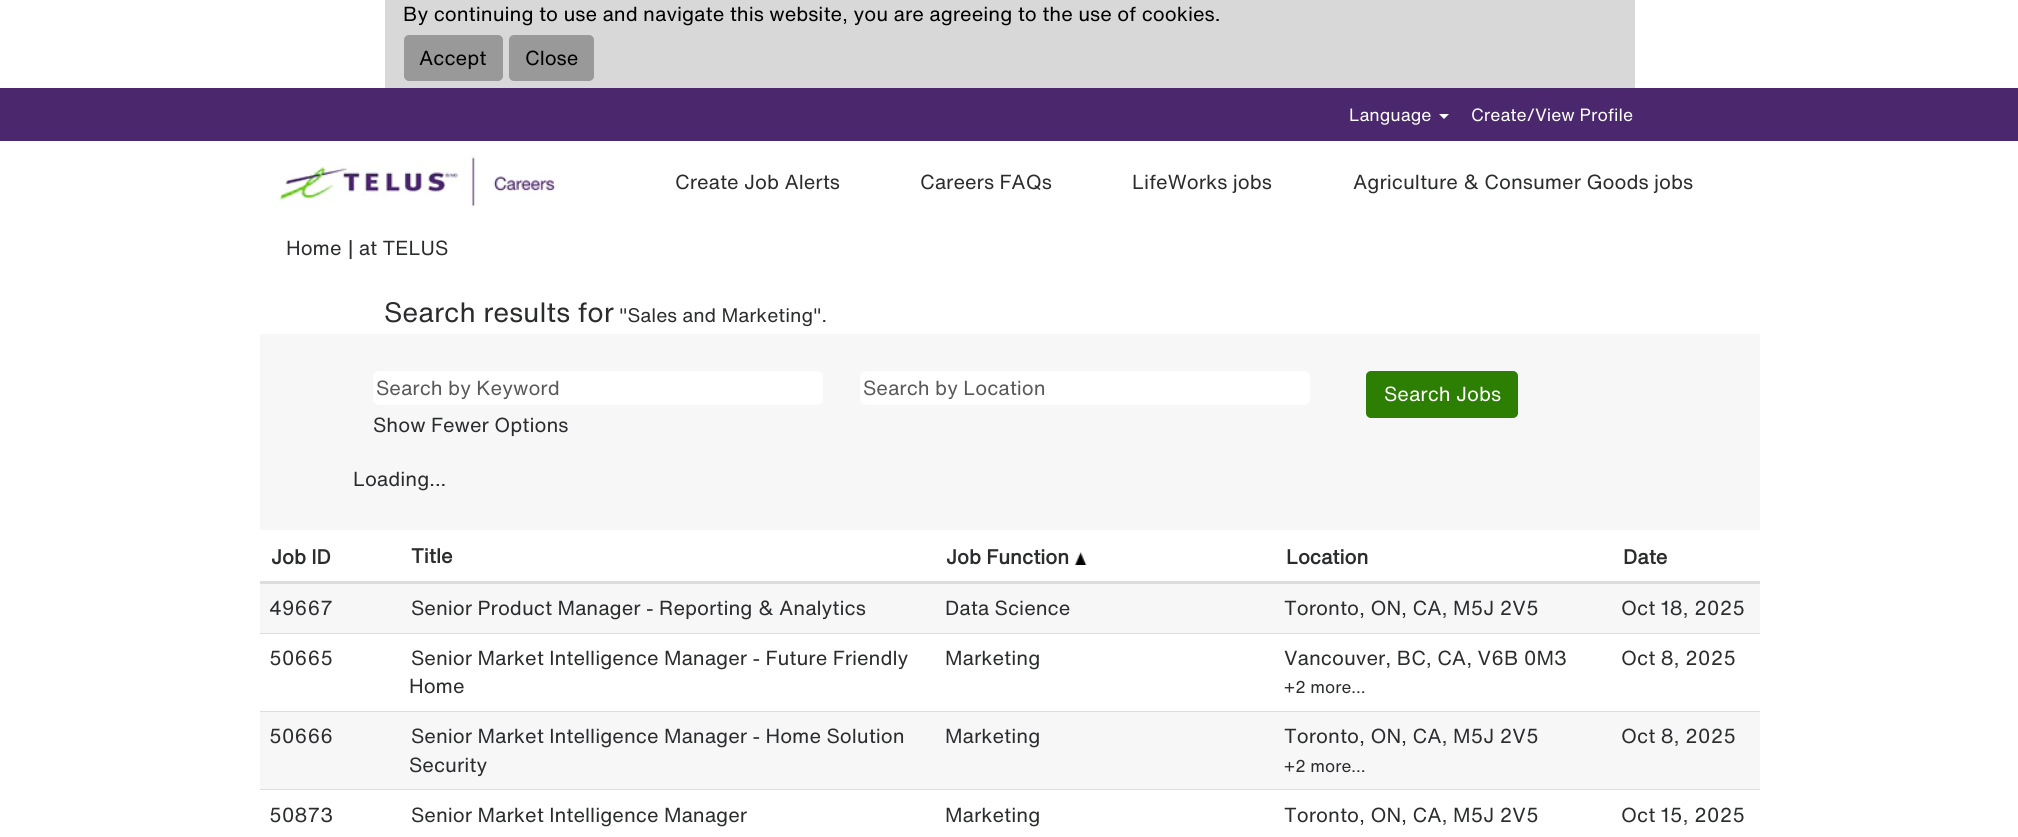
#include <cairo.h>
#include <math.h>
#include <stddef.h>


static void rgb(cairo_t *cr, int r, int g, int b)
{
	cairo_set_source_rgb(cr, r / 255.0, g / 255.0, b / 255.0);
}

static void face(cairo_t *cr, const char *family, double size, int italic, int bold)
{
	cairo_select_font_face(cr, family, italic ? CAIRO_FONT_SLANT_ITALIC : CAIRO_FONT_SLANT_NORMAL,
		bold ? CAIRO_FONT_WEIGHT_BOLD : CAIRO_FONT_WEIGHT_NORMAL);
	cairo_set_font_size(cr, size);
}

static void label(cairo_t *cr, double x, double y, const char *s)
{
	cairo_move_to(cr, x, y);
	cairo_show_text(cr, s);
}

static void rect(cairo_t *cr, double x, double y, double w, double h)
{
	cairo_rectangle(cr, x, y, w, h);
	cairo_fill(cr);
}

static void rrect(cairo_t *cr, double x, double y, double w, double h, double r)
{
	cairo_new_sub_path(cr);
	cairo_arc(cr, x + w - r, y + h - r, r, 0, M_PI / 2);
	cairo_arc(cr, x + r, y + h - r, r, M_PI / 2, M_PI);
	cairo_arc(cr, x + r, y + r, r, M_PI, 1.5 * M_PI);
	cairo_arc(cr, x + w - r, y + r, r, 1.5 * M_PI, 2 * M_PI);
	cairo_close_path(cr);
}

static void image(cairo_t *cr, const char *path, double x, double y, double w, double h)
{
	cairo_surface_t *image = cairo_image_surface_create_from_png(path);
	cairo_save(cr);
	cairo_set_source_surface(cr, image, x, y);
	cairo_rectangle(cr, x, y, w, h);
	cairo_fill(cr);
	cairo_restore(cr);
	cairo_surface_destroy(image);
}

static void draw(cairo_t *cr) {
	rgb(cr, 255, 255, 255);
	cairo_paint(cr);
	rgb(cr, 216, 216, 216);
	rect(cr, 385, 0, 1250, 88);
	face(cr, "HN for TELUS", 20, 0, 0);
	rgb(cr, 0, 0, 0);
	label(cr, 403, 21, "By continuing to use and navigate this website, you are agreeing to the use of cookies.");
	rgb(cr, 153, 153, 153);
	rrect(cr, 404, 35, 99, 46, 5);
	cairo_fill(cr);
	rgb(cr, 0, 0, 0);
	label(cr, 419, 65, "Accept");
	rgb(cr, 153, 153, 153);
	rrect(cr, 509, 35, 85, 46, 5);
	cairo_fill(cr);
	rgb(cr, 0, 0, 0);
	label(cr, 525, 65, "Close");
	rgb(cr, 75, 40, 109);
	rect(cr, 0, 88, 2018, 53);
	face(cr, "HN for TELUS", 17.5, 0, 0);
	rgb(cr, 255, 255, 255);
	label(cr, 1349, 121, "Language");
	cairo_new_path(cr);
	cairo_move_to(cr, 1439, 114);
	cairo_line_to(cr, 1449, 114);
	cairo_line_to(cr, 1444, 119);
	cairo_close_path(cr);
	cairo_fill(cr);
	label(cr, 1471, 121, "Create/View Profile");
	image(cr, "image0.png", 276, 155, 280, 52);
	face(cr, "HN for TELUS", 20, 0, 0);
	rgb(cr, 42, 44, 46);
	label(cr, 675, 189, "Create Job Alerts");
	label(cr, 920, 189, "Careers FAQs");
	label(cr, 1132, 189, "LifeWorks jobs");
	label(cr, 1353, 189, "Agriculture & Consumer Goods jobs");
	label(cr, 286, 255, "Home");
	label(cr, 348, 255, "| at TELUS");
	face(cr, "HN for TELUS", 27.5, 0, 0);
	label(cr, 384, 322, "Search results for");
	face(cr, "HN for TELUS", 19.25, 0, 0);
	label(cr, 619, 322, "\"Sales and Marketing\".");
	rgb(cr, 247, 247, 248);
	rect(cr, 260, 334, 1500, 196);
	rgb(cr, 255, 255, 255);
	rrect(cr, 373, 371, 450, 34, 6);
	cairo_fill(cr);
	face(cr, "HN for TELUS", 20, 0, 0);
	rgb(cr, 89, 89, 89);
	label(cr, 376, 395, "Search by Keyword");
	rgb(cr, 255, 255, 255);
	rrect(cr, 860, 371, 450, 34, 6);
	cairo_fill(cr);
	rgb(cr, 89, 89, 89);
	label(cr, 863, 395, "Search by Location");
	rgb(cr, 42, 44, 46);
	label(cr, 373, 432, "Show Fewer Options");
	label(cr, 353, 486, "Loading...");
	rgb(cr, 44, 127, 3);
	rrect(cr, 1366, 371, 152, 47, 5);
	cairo_fill(cr);
	rgb(cr, 255, 255, 255);
	label(cr, 1384, 401, "Search Jobs");
	face(cr, "HN for TELUS", 20, 0, 1);
	rgb(cr, 42, 44, 46);
	label(cr, 271, 564, "Job ID");
	label(cr, 411, 563, "Title");
	label(cr, 946, 564, "Job Function");
	image(cr, "image1.png", 1075, 552, 12, 13);
	label(cr, 1286, 564, "Location");
	rgb(cr, 221, 221, 221);
	rect(cr, 260, 581, 1500, 3);
	rgb(cr, 42, 44, 46);
	label(cr, 1623, 564, "Date");
	rgb(cr, 247, 247, 248);
	rect(cr, 260, 584, 1500, 49);
	face(cr, "HN for TELUS", 20, 0, 0);
	rgb(cr, 42, 44, 46);
	label(cr, 269, 615, "49667");
	label(cr, 411, 615, "Senior Product Manager - Reporting & Analytics");
	label(cr, 945, 615, "Data Science");
	label(cr, 1284, 615, "Toronto, ON, CA, M5J 2V5");
	label(cr, 1621, 615, "Oct 18, 2025");
	label(cr, 269, 665, "50665");
	label(cr, 411, 665, "Senior Market Intelligence Manager - Future Friendly");
	label(cr, 409, 693, "Home");
	label(cr, 945, 665, "Marketing");
	label(cr, 1284, 665, "Vancouver, BC, CA, V6B 0M3");
	face(cr, "HN for TELUS", 17, 0, 0);
	label(cr, 1284, 693, "+2 more…");
	rgb(cr, 221, 221, 221);
	rect(cr, 260, 633, 1500, 1);
	face(cr, "HN for TELUS", 20, 0, 0);
	rgb(cr, 42, 44, 46);
	label(cr, 1621, 665, "Oct 8, 2025");
	rgb(cr, 247, 247, 248);
	rect(cr, 260, 712, 1500, 77);
	rgb(cr, 42, 44, 46);
	label(cr, 269, 743, "50666");
	label(cr, 411, 743, "Senior Market Intelligence Manager - Home Solution");
	label(cr, 409, 772, "Security");
	label(cr, 945, 743, "Marketing");
	label(cr, 1284, 743, "Toronto, ON, CA, M5J 2V5");
	face(cr, "HN for TELUS", 17, 0, 0);
	label(cr, 1284, 772, "+2 more…");
	rgb(cr, 221, 221, 221);
	rect(cr, 260, 711, 1500, 1);
	face(cr, "HN for TELUS", 20, 0, 0);
	rgb(cr, 42, 44, 46);
	label(cr, 1621, 743, "Oct 8, 2025");
	label(cr, 269, 822, "50873");
	label(cr, 411, 822, "Senior Market Intelligence Manager");
	label(cr, 945, 822, "Marketing");
	label(cr, 1284, 822, "Toronto, ON, CA, M5J 2V5");
	rgb(cr, 221, 221, 221);
	rect(cr, 260, 789, 1500, 1);
	rgb(cr, 42, 44, 46);
	label(cr, 1621, 822, "Oct 15, 2025");
}

int main(void) {
	cairo_surface_t *surface = cairo_image_surface_create(CAIRO_FORMAT_RGB24, 2018, 837);
	cairo_t *cr = cairo_create(surface);
	cairo_font_options_t *options = cairo_font_options_create();
	cairo_font_options_set_hint_metrics(options, CAIRO_HINT_METRICS_OFF);
	cairo_font_options_set_hint_style(options, CAIRO_HINT_STYLE_NONE);
	cairo_set_font_options(cr, options);
	cairo_set_miter_limit(cr, 4);
	draw(cr);
	cairo_surface_write_to_png(surface, "render.png");
	cairo_font_options_destroy(options);
	cairo_destroy(cr);
	cairo_surface_destroy(surface);
	return 0;
}
